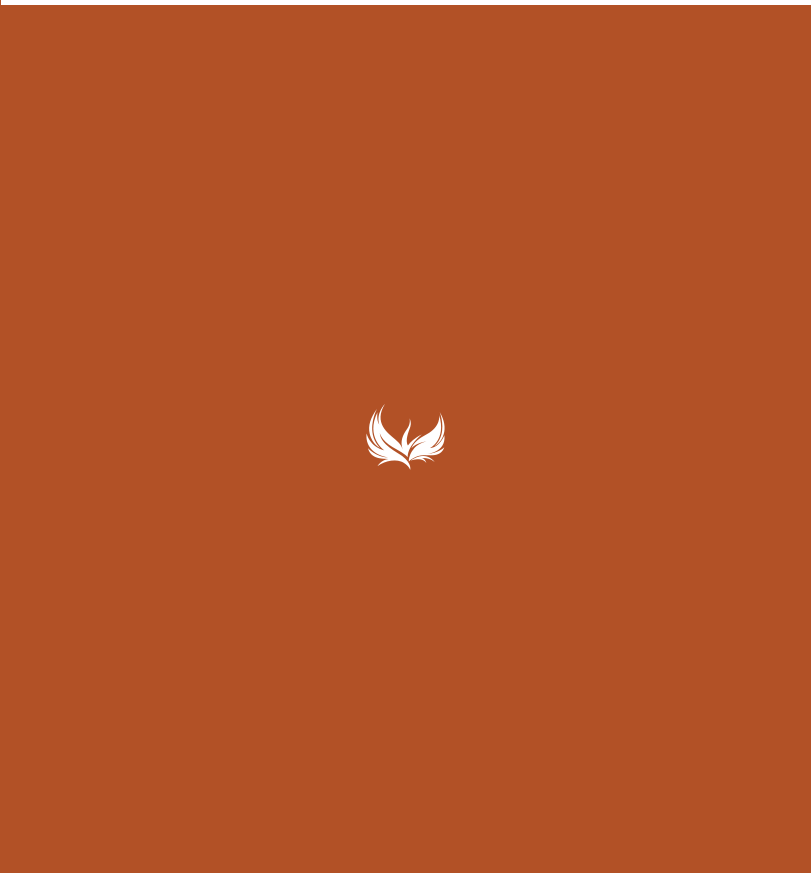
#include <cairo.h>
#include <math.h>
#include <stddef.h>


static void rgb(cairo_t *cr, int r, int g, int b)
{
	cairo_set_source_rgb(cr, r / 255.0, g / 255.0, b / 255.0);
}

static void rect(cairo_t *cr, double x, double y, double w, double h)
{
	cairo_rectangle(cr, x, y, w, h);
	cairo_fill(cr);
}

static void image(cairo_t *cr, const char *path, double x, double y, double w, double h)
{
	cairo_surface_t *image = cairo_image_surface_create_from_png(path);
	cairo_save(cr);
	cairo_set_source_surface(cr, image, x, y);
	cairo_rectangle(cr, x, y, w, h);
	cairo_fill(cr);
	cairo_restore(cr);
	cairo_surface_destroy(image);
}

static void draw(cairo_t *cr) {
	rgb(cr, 178, 81, 38);
	cairo_paint(cr);
	rgb(cr, 255, 255, 255);
	rect(cr, 1, 0, 810, 5);
	image(cr, "image0.png", 366, 404, 79, 66);
}

int main(void) {
	cairo_surface_t *surface = cairo_image_surface_create(CAIRO_FORMAT_RGB24, 811, 873);
	cairo_t *cr = cairo_create(surface);
	cairo_font_options_t *options = cairo_font_options_create();
	cairo_font_options_set_hint_metrics(options, CAIRO_HINT_METRICS_OFF);
	cairo_font_options_set_hint_style(options, CAIRO_HINT_STYLE_NONE);
	cairo_set_font_options(cr, options);
	cairo_set_miter_limit(cr, 4);
	draw(cr);
	cairo_surface_write_to_png(surface, "render.png");
	cairo_font_options_destroy(options);
	cairo_destroy(cr);
	cairo_surface_destroy(surface);
	return 0;
}
